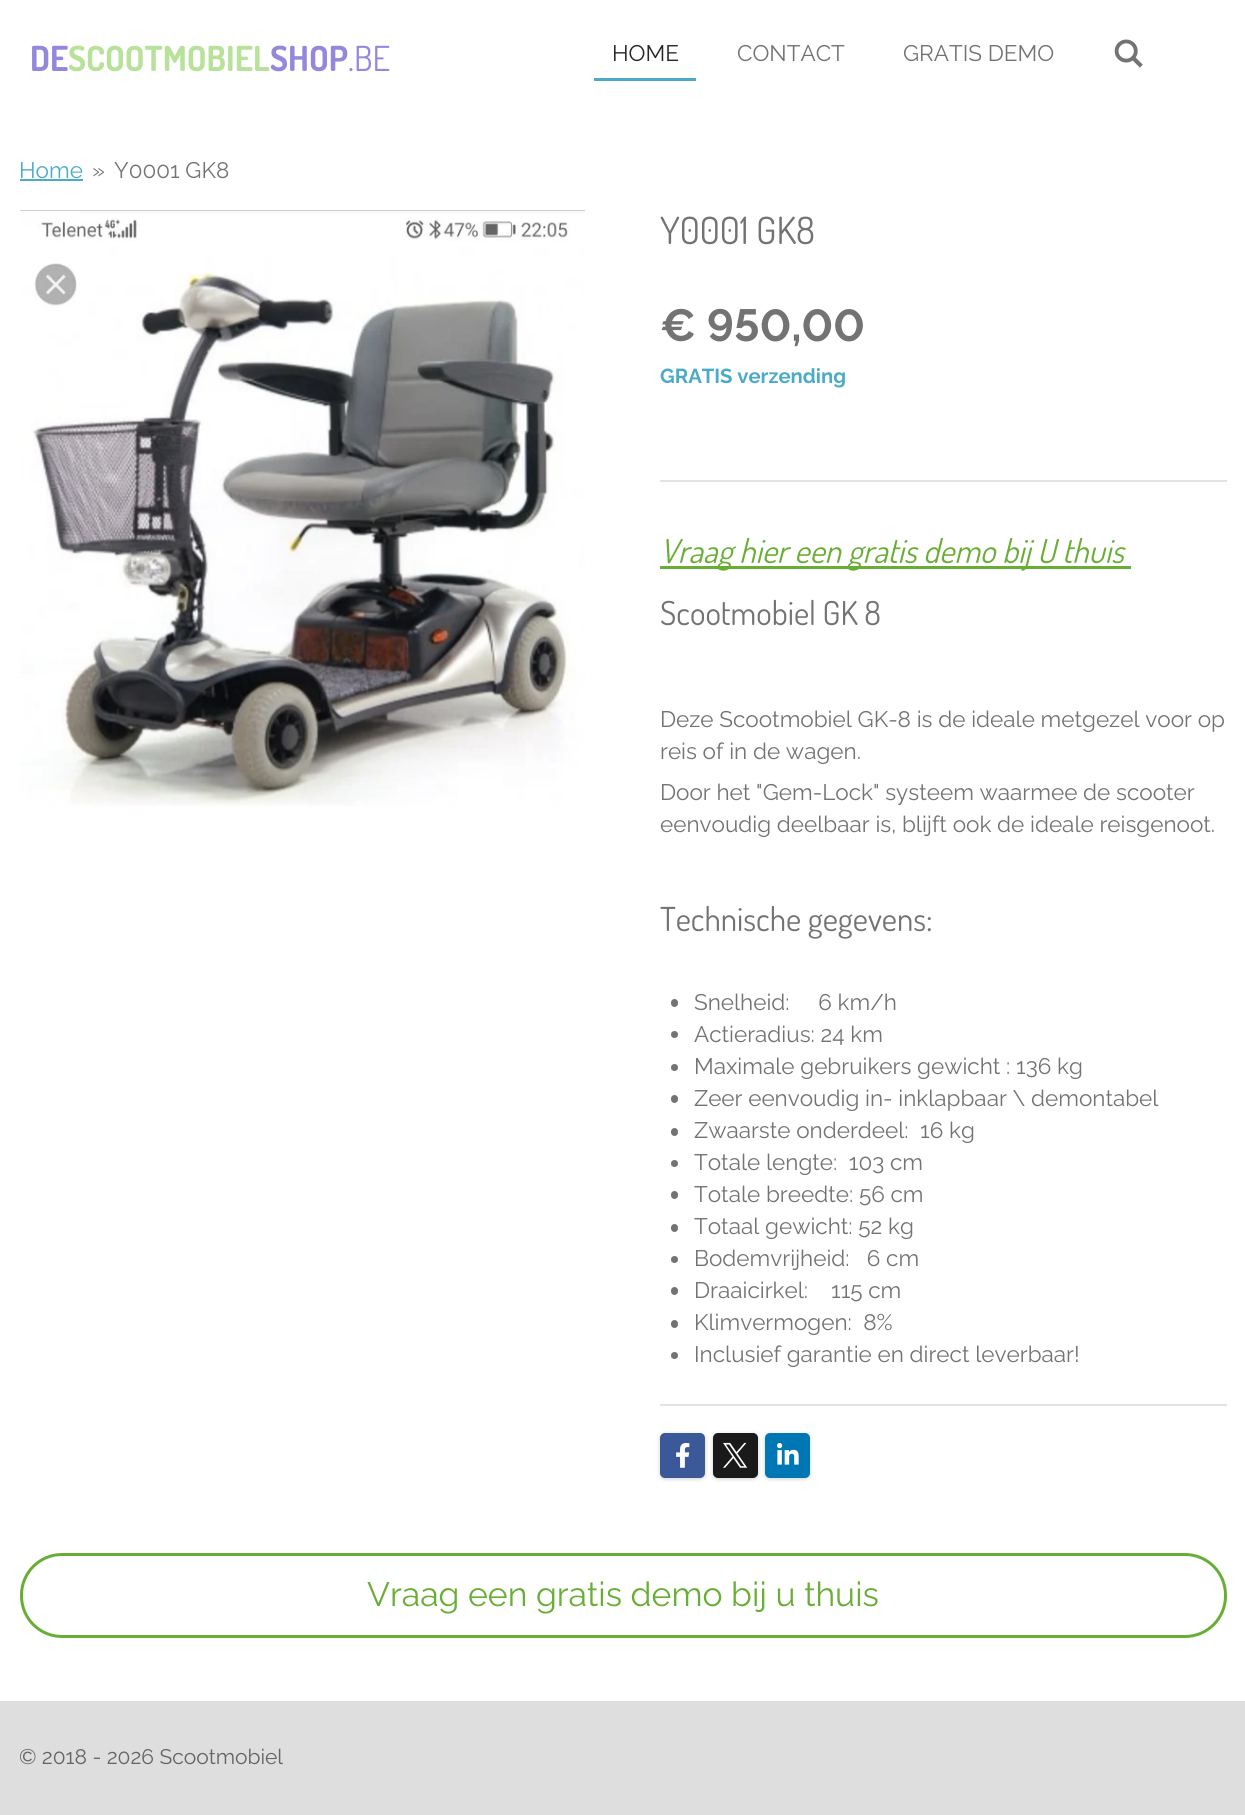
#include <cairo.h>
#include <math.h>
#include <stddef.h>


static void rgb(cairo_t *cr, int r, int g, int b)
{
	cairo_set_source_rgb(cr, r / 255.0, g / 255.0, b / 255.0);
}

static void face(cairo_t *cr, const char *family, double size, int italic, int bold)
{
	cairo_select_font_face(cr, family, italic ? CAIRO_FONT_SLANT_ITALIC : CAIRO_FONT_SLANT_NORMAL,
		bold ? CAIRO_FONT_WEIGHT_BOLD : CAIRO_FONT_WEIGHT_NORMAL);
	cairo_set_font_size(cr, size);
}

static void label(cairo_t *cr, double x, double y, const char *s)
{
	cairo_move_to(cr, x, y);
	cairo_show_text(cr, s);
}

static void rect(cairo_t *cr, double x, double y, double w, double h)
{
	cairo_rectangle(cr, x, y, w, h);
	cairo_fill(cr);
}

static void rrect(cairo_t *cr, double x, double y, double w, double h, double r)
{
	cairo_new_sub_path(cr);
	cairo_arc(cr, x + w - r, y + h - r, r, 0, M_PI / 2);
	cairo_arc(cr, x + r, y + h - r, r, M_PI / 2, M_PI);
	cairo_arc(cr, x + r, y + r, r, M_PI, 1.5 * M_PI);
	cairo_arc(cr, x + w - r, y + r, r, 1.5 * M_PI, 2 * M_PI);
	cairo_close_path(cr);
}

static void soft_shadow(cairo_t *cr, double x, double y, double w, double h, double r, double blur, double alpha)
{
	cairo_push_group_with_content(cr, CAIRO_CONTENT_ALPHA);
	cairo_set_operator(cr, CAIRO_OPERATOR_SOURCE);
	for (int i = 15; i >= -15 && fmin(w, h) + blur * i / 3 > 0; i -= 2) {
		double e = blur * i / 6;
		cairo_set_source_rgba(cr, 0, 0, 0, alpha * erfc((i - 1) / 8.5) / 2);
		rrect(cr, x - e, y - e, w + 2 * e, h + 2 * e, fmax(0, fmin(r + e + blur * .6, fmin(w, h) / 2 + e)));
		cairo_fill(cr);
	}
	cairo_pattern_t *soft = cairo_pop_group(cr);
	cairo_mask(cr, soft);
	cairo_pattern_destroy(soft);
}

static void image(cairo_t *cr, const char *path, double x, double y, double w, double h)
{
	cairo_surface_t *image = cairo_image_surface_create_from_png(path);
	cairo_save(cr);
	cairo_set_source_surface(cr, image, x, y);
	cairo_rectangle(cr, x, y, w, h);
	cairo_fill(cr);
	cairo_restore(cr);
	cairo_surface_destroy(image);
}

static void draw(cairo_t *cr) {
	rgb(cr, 255, 255, 255);
	cairo_paint(cr);
	face(cr, "Dosis", 34.5, 0, 1);
	rgb(cr, 148, 136, 220);
	label(cr, 30, 71, "DE");
	rgb(cr, 184, 225, 154);
	label(cr, 68, 71, "SCOOTMOBIEL");
	rgb(cr, 148, 136, 220);
	label(cr, 270, 71, "SHOP");
	face(cr, "Dosis", 34.5, 0, 0);
	label(cr, 348, 71, ".BE");
	rgb(cr, 76, 170, 201);
	rect(cr, 594, 78, 102, 3);
	face(cr, "Raleway", 22.5, 0, 0);
	rgb(cr, 38, 38, 38);
	label(cr, 612, 61, "HOME");
	rgb(cr, 115, 115, 115);
	label(cr, 737, 61, "CONTACT");
	label(cr, 903, 61, "GRATIS DEMO");
	image(cr, "image0.png", 1114, 39, 29, 29);
	rgb(cr, 76, 170, 201);
	label(cr, 19, 178, "Home");
	rect(cr, 20, 179, 63, 2);
	rgb(cr, 115, 115, 115);
	label(cr, 92, 178, "»");
	label(cr, 114, 178, "Y0001 GK8");
	image(cr, "image1.png", 20, 210, 565, 597);
	face(cr, "Dosis", 37.5, 0, 0);
	label(cr, 660, 244, "Y0001 GK8");
	face(cr, "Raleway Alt", 45, 0, 1);
	label(cr, 660, 341, "€ 950,00");
	face(cr, "Raleway", 20.25, 0, 1);
	rgb(cr, 76, 170, 201);
	label(cr, 660, 383, "GRATIS verzending");
	rgb(cr, 227, 227, 227);
	rect(cr, 660, 480, 567, 2);
	rgb(cr, 104, 174, 52);
	rect(cr, 660, 566, 471, 3);
	face(cr, "Dosis", 33, 1, 0);
	label(cr, 660, 563, "Vraag hier een gratis demo bij U thuis");
	face(cr, "Dosis", 33, 0, 0);
	rgb(cr, 115, 115, 115);
	label(cr, 660, 625, "Scootmobiel GK 8");
	face(cr, "Raleway", 22.5, 0, 0);
	label(cr, 660, 727, "Deze Scootmobiel GK-8 is de ideale metgezel voor op");
	label(cr, 660, 759, "reis of in de wagen.");
	label(cr, 660, 800, "Door het \"Gem-Lock\" systeem waarmee de scooter");
	label(cr, 660, 832, "eenvoudig deelbaar is, blijft ook de ideale reisgenoot.");
	face(cr, "Dosis", 33, 0, 0);
	label(cr, 660, 931, "Technische gegevens:");
	rrect(cr, 671, 999, 7, 8, 3.5);
	cairo_fill(cr);
	face(cr, "Raleway", 22.5, 0, 0);
	label(cr, 694, 1010, "Snelheid:     6 km/h");
	cairo_new_path(cr);
	cairo_arc(cr, 674.5, 1034.5, 3.5, 0, 2 * M_PI);
	cairo_fill(cr);
	label(cr, 694, 1042, "Actieradius: 24 km");
	cairo_new_path(cr);
	cairo_arc(cr, 674.5, 1067.5, 3.5, 0, 2 * M_PI);
	cairo_fill(cr);
	label(cr, 694, 1074, "Maximale gebruikers gewicht : 136 kg");
	rrect(cr, 671, 1095, 7, 8, 3.5);
	cairo_fill(cr);
	label(cr, 694, 1106, "Zeer eenvoudig in- inklapbaar \\ demontabel");
	rrect(cr, 671, 1128, 7, 8, 3.5);
	cairo_fill(cr);
	label(cr, 694, 1138, "Zwaarste onderdeel:  16 kg");
	cairo_new_path(cr);
	cairo_arc(cr, 674.5, 1163.5, 3.5, 0, 2 * M_PI);
	cairo_fill(cr);
	label(cr, 694, 1170, "Totale lengte:  103 cm");
	rrect(cr, 671, 1191, 7, 8, 3.5);
	cairo_fill(cr);
	label(cr, 694, 1202, "Totale breedte: 56 cm");
	rrect(cr, 671, 1224, 7, 8, 3.5);
	cairo_fill(cr);
	label(cr, 694, 1234, "Totaal gewicht: 52 kg");
	cairo_new_path(cr);
	cairo_arc(cr, 674.5, 1259.5, 3.5, 0, 2 * M_PI);
	cairo_fill(cr);
	label(cr, 694, 1266, "Bodemvrijheid:   6 cm");
	rrect(cr, 671, 1287, 7, 8, 3.5);
	cairo_fill(cr);
	label(cr, 694, 1298, "Draaicirkel:    115 cm");
	rrect(cr, 671, 1320, 7, 8, 3.5);
	cairo_fill(cr);
	label(cr, 694, 1330, "Klimvermogen:  8%");
	cairo_new_path(cr);
	cairo_arc(cr, 674.5, 1355.5, 3.5, 0, 2 * M_PI);
	cairo_fill(cr);
	label(cr, 694, 1362, "Inclusief garantie en direct leverbaar!");
	rgb(cr, 227, 227, 227);
	rect(cr, 660, 1404, 567, 2);
	rgb(cr, 0, 0, 0);
	soft_shadow(cr, 660, 1434, 45, 45, 5, 2, 0.2);
	rgb(cr, 59, 89, 152);
	rrect(cr, 660, 1433, 45, 45, 5);
	cairo_fill(cr);
	image(cr, "image2.png", 676, 1443, 14, 25);
	rgb(cr, 0, 0, 0);
	soft_shadow(cr, 713, 1434, 45, 45, 5, 2, 0.2);
	rgb(cr, 26, 26, 26);
	rrect(cr, 713, 1433, 45, 45, 5);
	cairo_fill(cr);
	image(cr, "image3.png", 723, 1442, 25, 26);
	rgb(cr, 0, 0, 0);
	soft_shadow(cr, 765, 1434, 45, 45, 5, 2, 0.2);
	rgb(cr, 0, 119, 181);
	rrect(cr, 765, 1433, 45, 45, 5);
	cairo_fill(cr);
	image(cr, "image4.png", 777, 1443, 22, 22);
	rrect(cr, 21.5, 1554.5, 1204, 82, 40.5);
	rgb(cr, 104, 174, 52);
	cairo_set_line_width(cr, 3);
	cairo_stroke(cr);
	face(cr, "Raleway", 33.75, 0, 0);
	label(cr, 367, 1606, "Vraag een gratis demo bij u thuis");
	rgb(cr, 222, 222, 222);
	rect(cr, 0, 1701, 1245, 114);
	face(cr, "Raleway", 21, 0, 0);
	rgb(cr, 100, 100, 100);
	label(cr, 19, 1764, "© 2018 - 2026 Scootmobiel");
}

int main(void) {
	cairo_surface_t *surface = cairo_image_surface_create(CAIRO_FORMAT_RGB24, 1245, 1815);
	cairo_t *cr = cairo_create(surface);
	cairo_font_options_t *options = cairo_font_options_create();
	cairo_font_options_set_hint_metrics(options, CAIRO_HINT_METRICS_OFF);
	cairo_font_options_set_hint_style(options, CAIRO_HINT_STYLE_NONE);
	cairo_set_font_options(cr, options);
	cairo_set_miter_limit(cr, 4);
	draw(cr);
	cairo_surface_write_to_png(surface, "render.png");
	cairo_font_options_destroy(options);
	cairo_destroy(cr);
	cairo_surface_destroy(surface);
	return 0;
}
